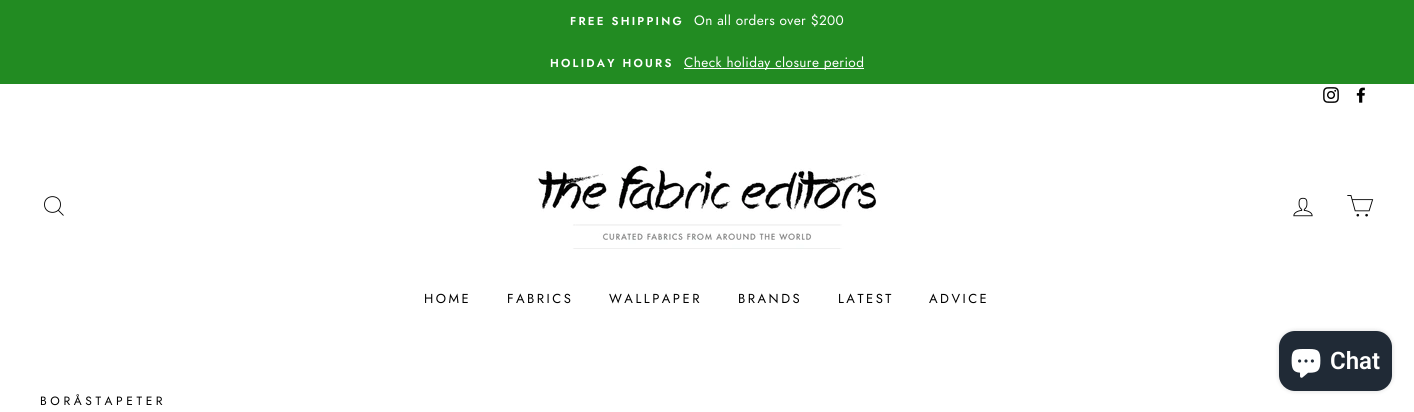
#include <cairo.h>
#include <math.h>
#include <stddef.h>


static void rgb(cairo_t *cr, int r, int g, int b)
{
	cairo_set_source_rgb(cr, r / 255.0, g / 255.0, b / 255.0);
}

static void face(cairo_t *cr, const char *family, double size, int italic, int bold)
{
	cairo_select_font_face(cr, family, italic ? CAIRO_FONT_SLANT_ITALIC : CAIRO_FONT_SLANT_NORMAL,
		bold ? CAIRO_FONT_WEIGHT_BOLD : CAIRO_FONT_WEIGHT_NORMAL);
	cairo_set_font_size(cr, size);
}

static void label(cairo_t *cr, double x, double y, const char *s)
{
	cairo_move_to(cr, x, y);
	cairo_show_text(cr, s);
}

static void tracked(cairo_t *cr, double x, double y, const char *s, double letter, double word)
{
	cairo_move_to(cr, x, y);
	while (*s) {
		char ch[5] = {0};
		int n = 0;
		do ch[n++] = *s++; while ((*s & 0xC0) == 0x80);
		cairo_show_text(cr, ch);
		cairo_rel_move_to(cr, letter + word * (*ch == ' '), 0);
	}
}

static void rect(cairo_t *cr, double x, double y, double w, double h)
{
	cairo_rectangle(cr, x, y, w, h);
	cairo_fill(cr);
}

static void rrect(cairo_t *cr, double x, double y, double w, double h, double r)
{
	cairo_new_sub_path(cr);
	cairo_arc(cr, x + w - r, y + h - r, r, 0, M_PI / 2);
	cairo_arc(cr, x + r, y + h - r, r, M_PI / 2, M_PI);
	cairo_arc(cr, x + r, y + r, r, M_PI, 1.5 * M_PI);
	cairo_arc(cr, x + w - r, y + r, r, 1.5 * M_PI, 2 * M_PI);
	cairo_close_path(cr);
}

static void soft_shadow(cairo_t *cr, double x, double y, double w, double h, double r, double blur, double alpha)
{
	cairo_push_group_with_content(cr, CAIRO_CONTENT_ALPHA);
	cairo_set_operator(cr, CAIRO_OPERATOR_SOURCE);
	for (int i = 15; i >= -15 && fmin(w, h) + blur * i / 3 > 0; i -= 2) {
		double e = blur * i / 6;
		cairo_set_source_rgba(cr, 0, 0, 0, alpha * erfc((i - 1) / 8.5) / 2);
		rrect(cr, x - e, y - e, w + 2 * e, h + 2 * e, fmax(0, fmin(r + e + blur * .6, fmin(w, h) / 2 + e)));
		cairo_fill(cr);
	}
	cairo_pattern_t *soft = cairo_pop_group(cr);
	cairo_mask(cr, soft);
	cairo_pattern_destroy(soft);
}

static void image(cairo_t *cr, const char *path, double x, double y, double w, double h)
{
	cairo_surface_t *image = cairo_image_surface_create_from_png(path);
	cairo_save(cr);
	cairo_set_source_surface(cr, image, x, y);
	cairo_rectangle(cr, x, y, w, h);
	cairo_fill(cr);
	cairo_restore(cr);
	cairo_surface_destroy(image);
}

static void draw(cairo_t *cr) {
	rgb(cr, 255, 255, 255);
	cairo_paint(cr);
	rgb(cr, 34, 139, 34);
	rect(cr, 0, 0, 1414, 84);
	face(cr, "Jost SemiBold", 11.5, 0, 0);
	rgb(cr, 255, 255, 255);
	tracked(cr, 570, 25, "FREE SHIPPING", 2.25, 0);
	face(cr, "Jost", 13.6, 0, 0);
	tracked(cr, 694, 25, "On all orders over $200", 0.4, 0);
	face(cr, "Jost SemiBold", 11.5, 0, 0);
	tracked(cr, 550, 67, "HOLIDAY HOURS", 2.25, 0);
	rect(cr, 684, 68, 180, 1);
	face(cr, "Jost", 13.6, 0, 0);
	tracked(cr, 684, 67, "Check holiday closure period", 0.4, 0);
	image(cr, "image0.png", 1323, 87, 16, 16);
	image(cr, "image1.png", 1356, 87, 9, 16);
	cairo_new_path(cr);
	cairo_move_to(cr, 60.5, 204.5);
	cairo_curve_to(cr, 60.5, 215, 44.5, 215, 44.5, 204.5);
	cairo_curve_to(cr, 44.5, 194, 60.5, 194, 60.5, 204.5);
	cairo_close_path(cr);
	cairo_move_to(cr, 63.5, 215.5);
	cairo_line_to(cr, 58.5, 210.5);
	rgb(cr, 0, 0, 0);
	cairo_set_line_width(cr, 0.9);
	cairo_stroke(cr);
	image(cr, "image2.png", 536, 164, 341, 85);
	image(cr, "image3.png", 1293, 197, 20, 20);
	image(cr, "image4.png", 1347, 195, 27, 22);
	face(cr, "Jost", 13, 0, 0);
	tracked(cr, 424, 303, "HOME", 2.5, 0);
	tracked(cr, 507, 303, "FABRICS", 2.5, 0);
	tracked(cr, 609, 303, "WALLPAPER", 2.5, 0);
	tracked(cr, 738, 303, "BRANDS", 2.5, 0);
	tracked(cr, 838, 303, "LATEST", 2.5, 0);
	tracked(cr, 929, 303, "ADVICE", 2.5, 0);
	face(cr, "Jost", 12, 0, 0);
	tracked(cr, 40, 405, "BORÅSTAPETER", 3.6, 0);
	rgb(cr, 0, 0, 0);
	soft_shadow(cr, 1279, 331, 113, 60, 16, 2.5, 0.15);
	rgb(cr, 32, 42, 54);
	rrect(cr, 1279, 331, 113, 60, 16);
	cairo_fill(cr);
	image(cr, "image5.png", 1291, 349, 30, 29);
	face(cr, "Roboto SemiBold", 24, 0, 0);
	rgb(cr, 255, 255, 255);
	label(cr, 1330, 369, "Chat");
}

int main(void) {
	cairo_surface_t *surface = cairo_image_surface_create(CAIRO_FORMAT_RGB24, 1414, 412);
	cairo_t *cr = cairo_create(surface);
	cairo_font_options_t *options = cairo_font_options_create();
	cairo_font_options_set_hint_metrics(options, CAIRO_HINT_METRICS_OFF);
	cairo_font_options_set_hint_style(options, CAIRO_HINT_STYLE_NONE);
	cairo_set_font_options(cr, options);
	cairo_set_miter_limit(cr, 4);
	draw(cr);
	cairo_surface_write_to_png(surface, "render.png");
	cairo_font_options_destroy(options);
	cairo_destroy(cr);
	cairo_surface_destroy(surface);
	return 0;
}
